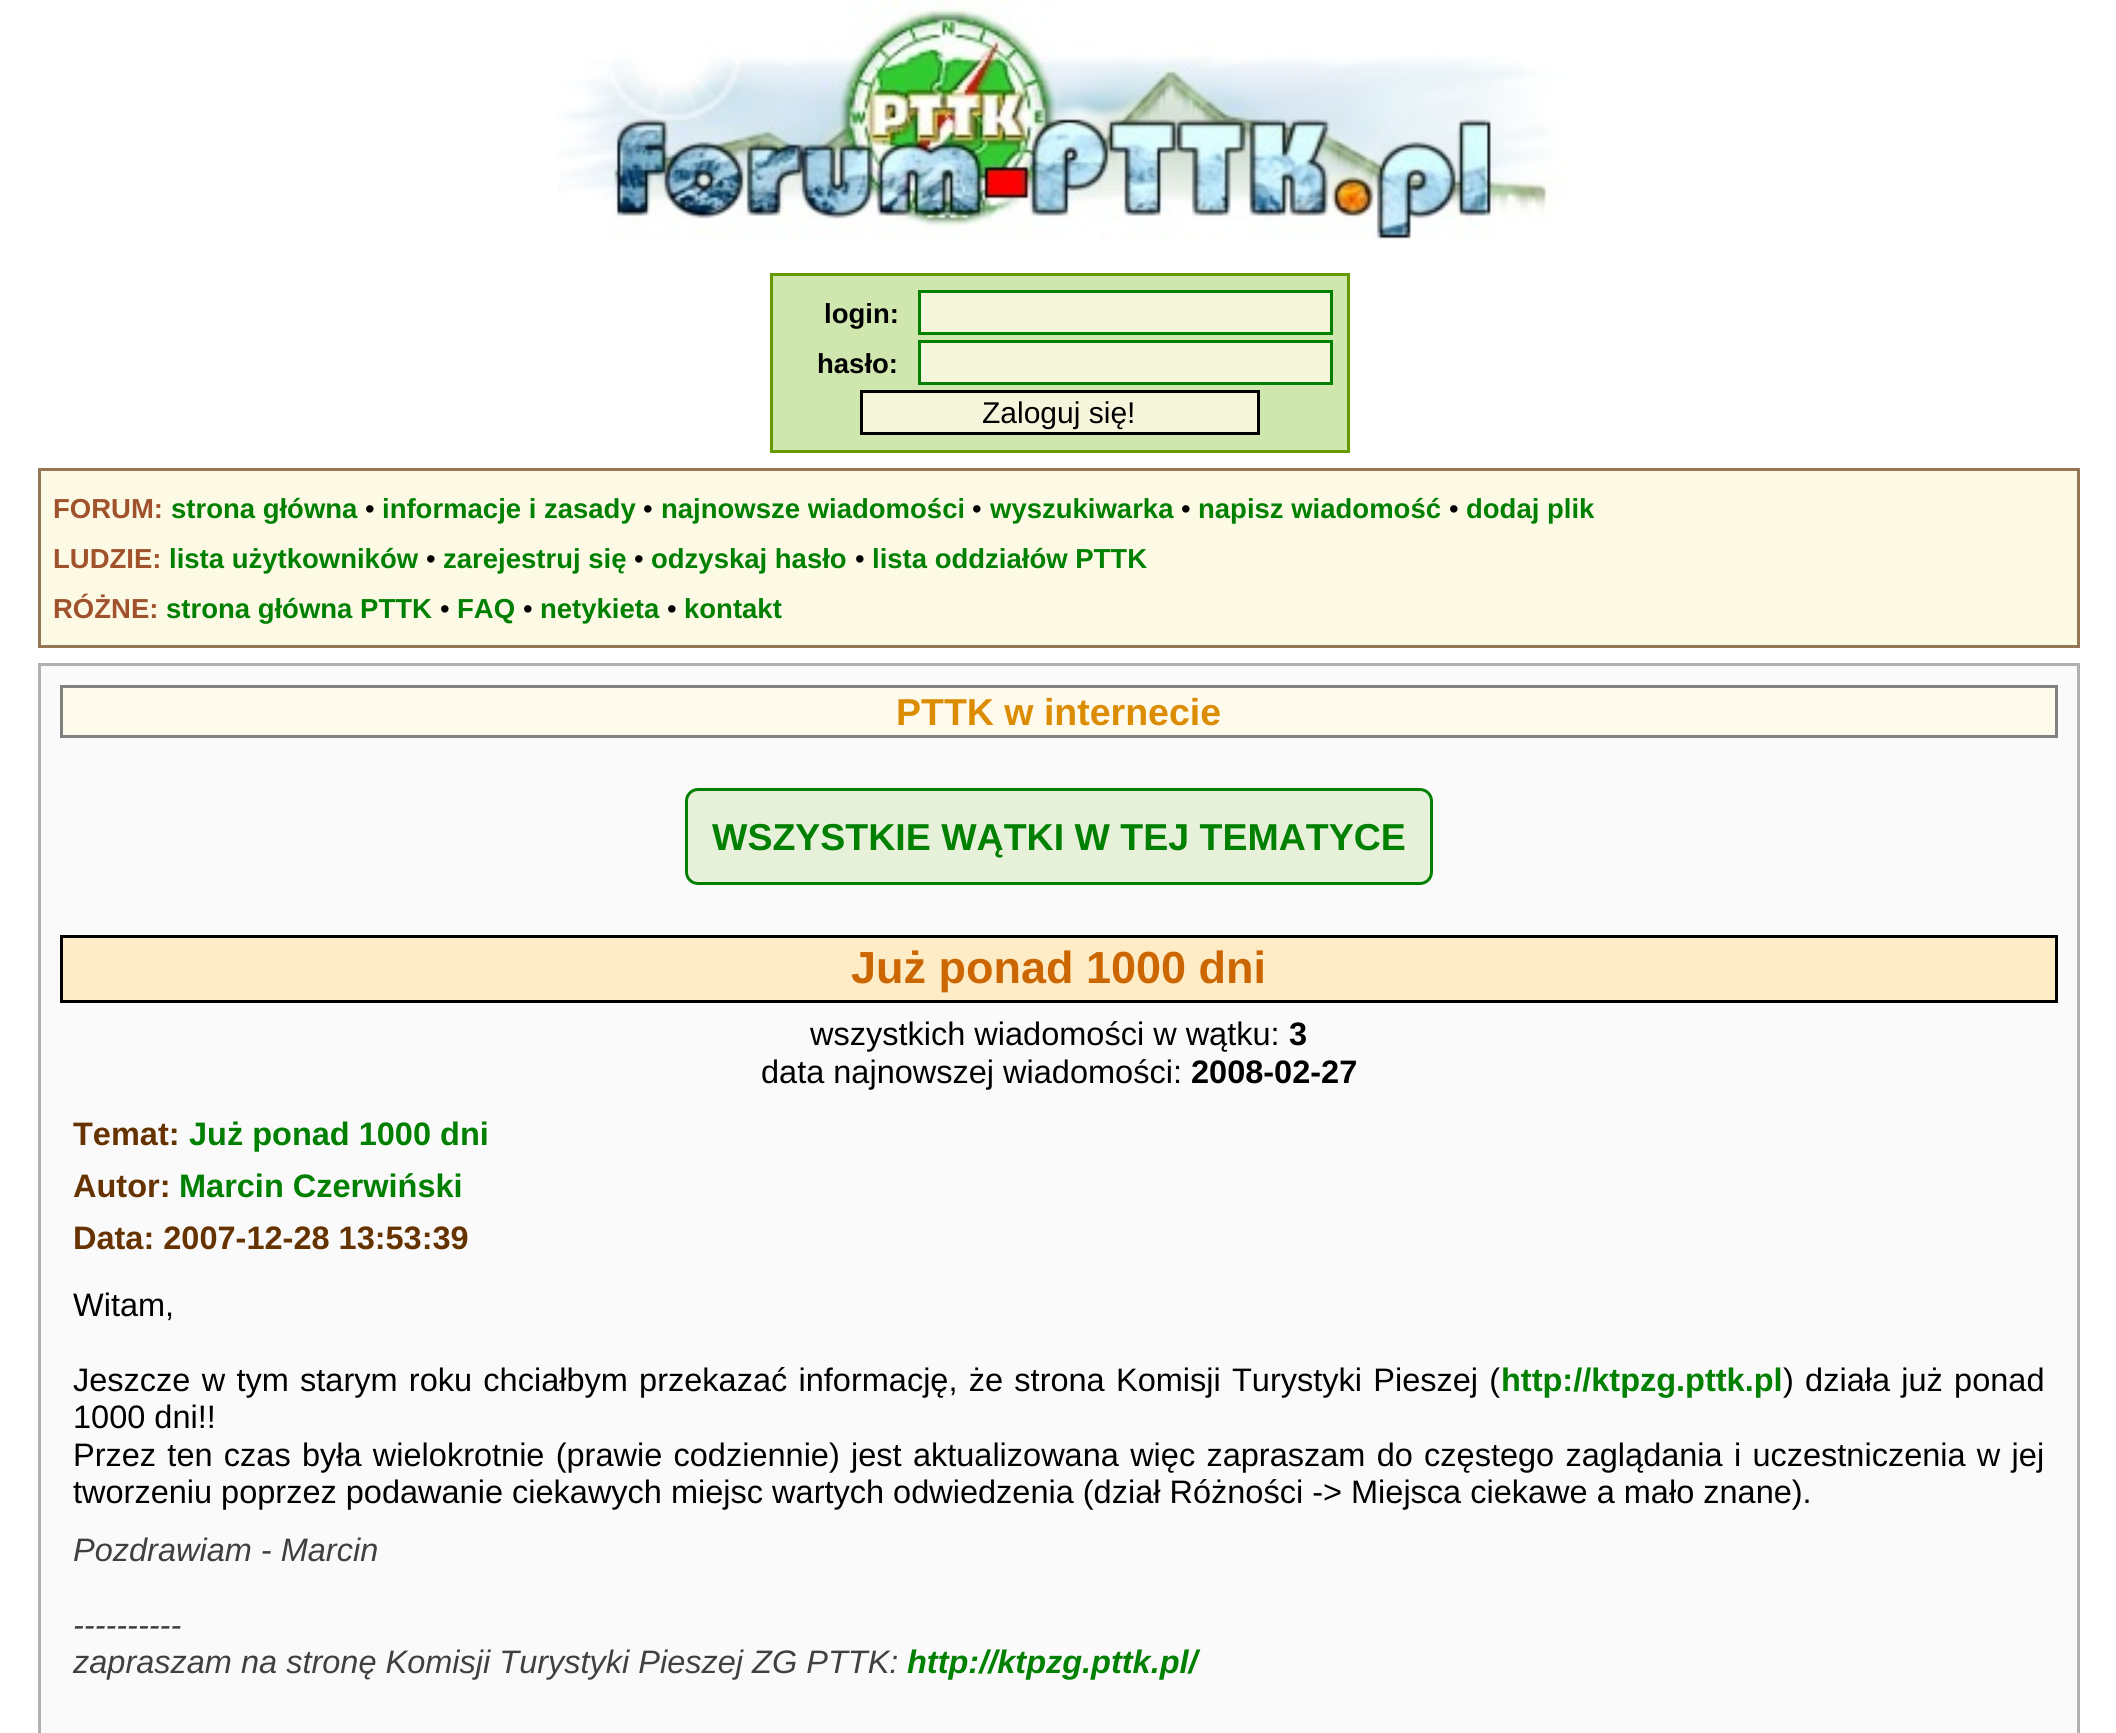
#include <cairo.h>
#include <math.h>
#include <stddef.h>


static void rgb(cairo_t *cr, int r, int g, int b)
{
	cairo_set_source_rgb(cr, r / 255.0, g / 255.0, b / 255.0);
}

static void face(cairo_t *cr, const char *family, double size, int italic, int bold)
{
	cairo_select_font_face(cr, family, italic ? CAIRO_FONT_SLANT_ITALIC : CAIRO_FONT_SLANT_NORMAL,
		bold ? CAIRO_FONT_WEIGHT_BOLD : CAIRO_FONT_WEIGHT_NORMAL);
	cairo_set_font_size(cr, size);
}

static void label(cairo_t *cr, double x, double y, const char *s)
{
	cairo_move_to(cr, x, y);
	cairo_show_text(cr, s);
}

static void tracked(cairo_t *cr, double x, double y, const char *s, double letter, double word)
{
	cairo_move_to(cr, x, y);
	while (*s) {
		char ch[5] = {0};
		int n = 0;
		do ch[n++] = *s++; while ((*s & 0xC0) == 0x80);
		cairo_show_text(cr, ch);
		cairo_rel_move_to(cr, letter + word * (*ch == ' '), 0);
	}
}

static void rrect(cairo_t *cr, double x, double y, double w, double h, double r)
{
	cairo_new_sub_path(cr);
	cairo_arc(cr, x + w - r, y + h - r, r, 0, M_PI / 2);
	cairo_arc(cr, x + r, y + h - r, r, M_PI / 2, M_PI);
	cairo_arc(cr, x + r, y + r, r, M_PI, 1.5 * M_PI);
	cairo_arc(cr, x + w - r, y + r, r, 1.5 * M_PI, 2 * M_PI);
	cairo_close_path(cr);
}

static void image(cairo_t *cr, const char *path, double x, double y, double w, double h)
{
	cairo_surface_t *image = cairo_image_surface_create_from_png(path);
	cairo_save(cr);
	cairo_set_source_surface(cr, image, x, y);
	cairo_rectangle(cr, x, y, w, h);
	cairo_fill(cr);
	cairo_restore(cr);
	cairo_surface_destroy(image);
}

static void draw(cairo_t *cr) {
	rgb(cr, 255, 255, 255);
	cairo_paint(cr);
	image(cr, "image0.png", 558, 0, 1013, 240);
	rgb(cr, 207, 230, 174);
	cairo_rectangle(cr, 771.5, 274.5, 577, 177);
	cairo_fill_preserve(cr);
	rgb(cr, 102, 153, 0);
	cairo_set_line_width(cr, 3);
	cairo_stroke(cr);
	face(cr, "Liberation Sans", 27.5, 0, 1);
	rgb(cr, 0, 0, 0);
	label(cr, 824, 323, "login:");
	rgb(cr, 245, 245, 220);
	cairo_rectangle(cr, 919.5, 291.5, 412, 42);
	cairo_fill_preserve(cr);
	rgb(cr, 0, 128, 0);
	cairo_stroke(cr);
	rgb(cr, 0, 0, 0);
	label(cr, 817, 373, "hasło:");
	rgb(cr, 245, 245, 220);
	cairo_rectangle(cr, 919.5, 341.5, 412, 42);
	cairo_fill_preserve(cr);
	rgb(cr, 0, 128, 0);
	cairo_stroke(cr);
	rgb(cr, 245, 245, 220);
	cairo_rectangle(cr, 861.5, 391.5, 397, 42);
	cairo_fill_preserve(cr);
	rgb(cr, 0, 0, 0);
	cairo_stroke(cr);
	face(cr, "Liberation Sans", 30, 0, 0);
	label(cr, 982, 423, "Zaloguj się!");
	rgb(cr, 252, 249, 228);
	cairo_rectangle(cr, 39.5, 469.5, 2039, 177);
	cairo_fill_preserve(cr);
	rgb(cr, 149, 119, 85);
	cairo_stroke(cr);
	face(cr, "Liberation Sans", 27.5, 0, 1);
	rgb(cr, 160, 82, 45);
	label(cr, 53, 518, "FORUM:");
	rgb(cr, 0, 128, 0);
	label(cr, 171, 518, "strona główna");
	face(cr, "Liberation Sans", 27.5, 0, 0);
	rgb(cr, 0, 0, 0);
	label(cr, 365, 518, "•");
	face(cr, "Liberation Sans", 27.5, 0, 1);
	rgb(cr, 0, 128, 0);
	label(cr, 382, 518, "informacje i zasady");
	face(cr, "Liberation Sans", 27.5, 0, 0);
	rgb(cr, 0, 0, 0);
	label(cr, 643, 518, "•");
	face(cr, "Liberation Sans", 27.5, 0, 1);
	rgb(cr, 0, 128, 0);
	label(cr, 661, 518, "najnowsze wiadomości");
	face(cr, "Liberation Sans", 27.5, 0, 0);
	rgb(cr, 0, 0, 0);
	label(cr, 972, 518, "•");
	face(cr, "Liberation Sans", 27.5, 0, 1);
	rgb(cr, 0, 128, 0);
	label(cr, 990, 518, "wyszukiwarka");
	face(cr, "Liberation Sans", 27.5, 0, 0);
	rgb(cr, 0, 0, 0);
	label(cr, 1181, 518, "•");
	face(cr, "Liberation Sans", 27.5, 0, 1);
	rgb(cr, 0, 128, 0);
	label(cr, 1198, 518, "napisz wiadomość");
	face(cr, "Liberation Sans", 27.5, 0, 0);
	rgb(cr, 0, 0, 0);
	label(cr, 1449, 518, "•");
	face(cr, "Liberation Sans", 27.5, 0, 1);
	rgb(cr, 0, 128, 0);
	label(cr, 1466, 518, "dodaj plik");
	rgb(cr, 160, 82, 45);
	label(cr, 53, 568, "LUDZIE:");
	rgb(cr, 0, 128, 0);
	label(cr, 169, 568, "lista użytkowników");
	face(cr, "Liberation Sans", 27.5, 0, 0);
	rgb(cr, 0, 0, 0);
	label(cr, 426, 568, "•");
	face(cr, "Liberation Sans", 27.5, 0, 1);
	rgb(cr, 0, 128, 0);
	label(cr, 443, 568, "zarejestruj się");
	face(cr, "Liberation Sans", 27.5, 0, 0);
	rgb(cr, 0, 0, 0);
	label(cr, 634, 568, "•");
	face(cr, "Liberation Sans", 27.5, 0, 1);
	rgb(cr, 0, 128, 0);
	label(cr, 651, 568, "odzyskaj hasło");
	face(cr, "Liberation Sans", 27.5, 0, 0);
	rgb(cr, 0, 0, 0);
	label(cr, 855, 568, "•");
	face(cr, "Liberation Sans", 27.5, 0, 1);
	rgb(cr, 0, 128, 0);
	label(cr, 872, 568, "lista oddziałów PTTK");
	rgb(cr, 160, 82, 45);
	label(cr, 53, 618, "RÓŻNE:");
	rgb(cr, 0, 128, 0);
	label(cr, 166, 618, "strona główna PTTK");
	face(cr, "Liberation Sans", 27.5, 0, 0);
	rgb(cr, 0, 0, 0);
	label(cr, 440, 618, "•");
	face(cr, "Liberation Sans", 27.5, 0, 1);
	rgb(cr, 0, 128, 0);
	label(cr, 457, 618, "FAQ");
	face(cr, "Liberation Sans", 27.5, 0, 0);
	rgb(cr, 0, 0, 0);
	label(cr, 523, 618, "•");
	face(cr, "Liberation Sans", 27.5, 0, 1);
	rgb(cr, 0, 128, 0);
	label(cr, 540, 618, "netykieta");
	face(cr, "Liberation Sans", 27.5, 0, 0);
	rgb(cr, 0, 0, 0);
	label(cr, 667, 618, "•");
	face(cr, "Liberation Sans", 27.5, 0, 1);
	rgb(cr, 0, 128, 0);
	label(cr, 684, 618, "kontakt");
	rgb(cr, 250, 250, 250);
	cairo_rectangle(cr, 39.5, 664.5, 2039, 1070);
	cairo_fill_preserve(cr);
	rgb(cr, 177, 177, 177);
	cairo_stroke(cr);
	rgb(cr, 254, 250, 236);
	cairo_rectangle(cr, 61.5, 686.5, 1995, 50);
	cairo_fill_preserve(cr);
	rgb(cr, 128, 128, 128);
	cairo_stroke(cr);
	face(cr, "Liberation Sans", 37.5, 0, 1);
	rgb(cr, 220, 140, 0);
	label(cr, 896, 725, "PTTK w internecie");
	rgb(cr, 231, 240, 217);
	rrect(cr, 686.5, 789.5, 745, 94, 11.5);
	cairo_fill_preserve(cr);
	rgb(cr, 0, 128, 0);
	cairo_stroke(cr);
	label(cr, 712, 850, "WSZYSTKIE WĄTKI W TEJ TEMATYCE");
	rgb(cr, 253, 236, 198);
	cairo_rectangle(cr, 61.5, 936.5, 1995, 65);
	cairo_fill_preserve(cr);
	rgb(cr, 0, 0, 0);
	cairo_stroke(cr);
	face(cr, "Liberation Sans", 45, 0, 1);
	rgb(cr, 204, 102, 0);
	label(cr, 851, 983, "Już ponad 1000 dni");
	face(cr, "Liberation Sans", 32.5, 0, 0);
	rgb(cr, 0, 0, 0);
	label(cr, 810, 1045, "wszystkich wiadomości w wątku:");
	face(cr, "Liberation Sans", 32.5, 0, 1);
	label(cr, 1289, 1045, "3");
	face(cr, "Liberation Sans", 32.5, 0, 0);
	label(cr, 761, 1083, "data najnowszej wiadomości:");
	face(cr, "Liberation Sans", 32.5, 0, 1);
	label(cr, 1191, 1083, "2008-02-27");
	rgb(cr, 102, 51, 0);
	label(cr, 73, 1145, "Temat:");
	rgb(cr, 0, 128, 0);
	label(cr, 189, 1145, "Już ponad 1000 dni");
	rgb(cr, 102, 51, 0);
	label(cr, 73, 1197, "Autor:");
	rgb(cr, 0, 128, 0);
	label(cr, 179, 1197, "Marcin Czerwiński");
	rgb(cr, 102, 51, 0);
	label(cr, 73, 1249, "Data: 2007-12-28 13:53:39");
	face(cr, "Liberation Sans", 32.5, 0, 0);
	rgb(cr, 0, 0, 0);
	label(cr, 73, 1316, "Witam,");
	tracked(cr, 73, 1391, "Jeszcze w tym starym roku chciałbym przekazać informację, że strona Komisji Turystyki Pieszej (", 0, 2.25);
	face(cr, "Liberation Sans", 32.5, 0, 1);
	rgb(cr, 0, 128, 0);
	label(cr, 1501, 1391, "http://ktpzg.pttk.pl");
	face(cr, "Liberation Sans", 32.5, 0, 0);
	rgb(cr, 0, 0, 0);
	tracked(cr, 1783, 1391, ") działa już ponad", 0, 2.25);
	label(cr, 73, 1428, "1000 dni!!");
	tracked(cr, 73, 1466, "Przez ten czas była wielokrotnie (prawie codziennie) jest aktualizowana więc zapraszam do częstego zaglądania i uczestniczenia w jej", 0, 2.25);
	label(cr, 73, 1503, "tworzeniu poprzez podawanie ciekawych miejsc wartych odwiedzenia (dział Różności -> Miejsca ciekawe a mało znane).");
	face(cr, "Liberation Sans", 32.5, 1, 0);
	rgb(cr, 64, 64, 64);
	label(cr, 73, 1561, "Pozdrawiam - Marcin");
	label(cr, 73, 1636, "----------");
	label(cr, 73, 1673, "zapraszam na stronę Komisji Turystyki Pieszej ZG PTTK:");
	face(cr, "Liberation Sans", 32.5, 1, 1);
	rgb(cr, 0, 128, 0);
	label(cr, 907, 1673, "http://ktpzg.pttk.pl/");
}

int main(void) {
	cairo_surface_t *surface = cairo_image_surface_create(CAIRO_FORMAT_RGB24, 2116, 1733);
	cairo_t *cr = cairo_create(surface);
	cairo_font_options_t *options = cairo_font_options_create();
	cairo_font_options_set_hint_metrics(options, CAIRO_HINT_METRICS_OFF);
	cairo_font_options_set_hint_style(options, CAIRO_HINT_STYLE_NONE);
	cairo_set_font_options(cr, options);
	cairo_set_miter_limit(cr, 4);
	draw(cr);
	cairo_surface_write_to_png(surface, "render.png");
	cairo_font_options_destroy(options);
	cairo_destroy(cr);
	cairo_surface_destroy(surface);
	return 0;
}
